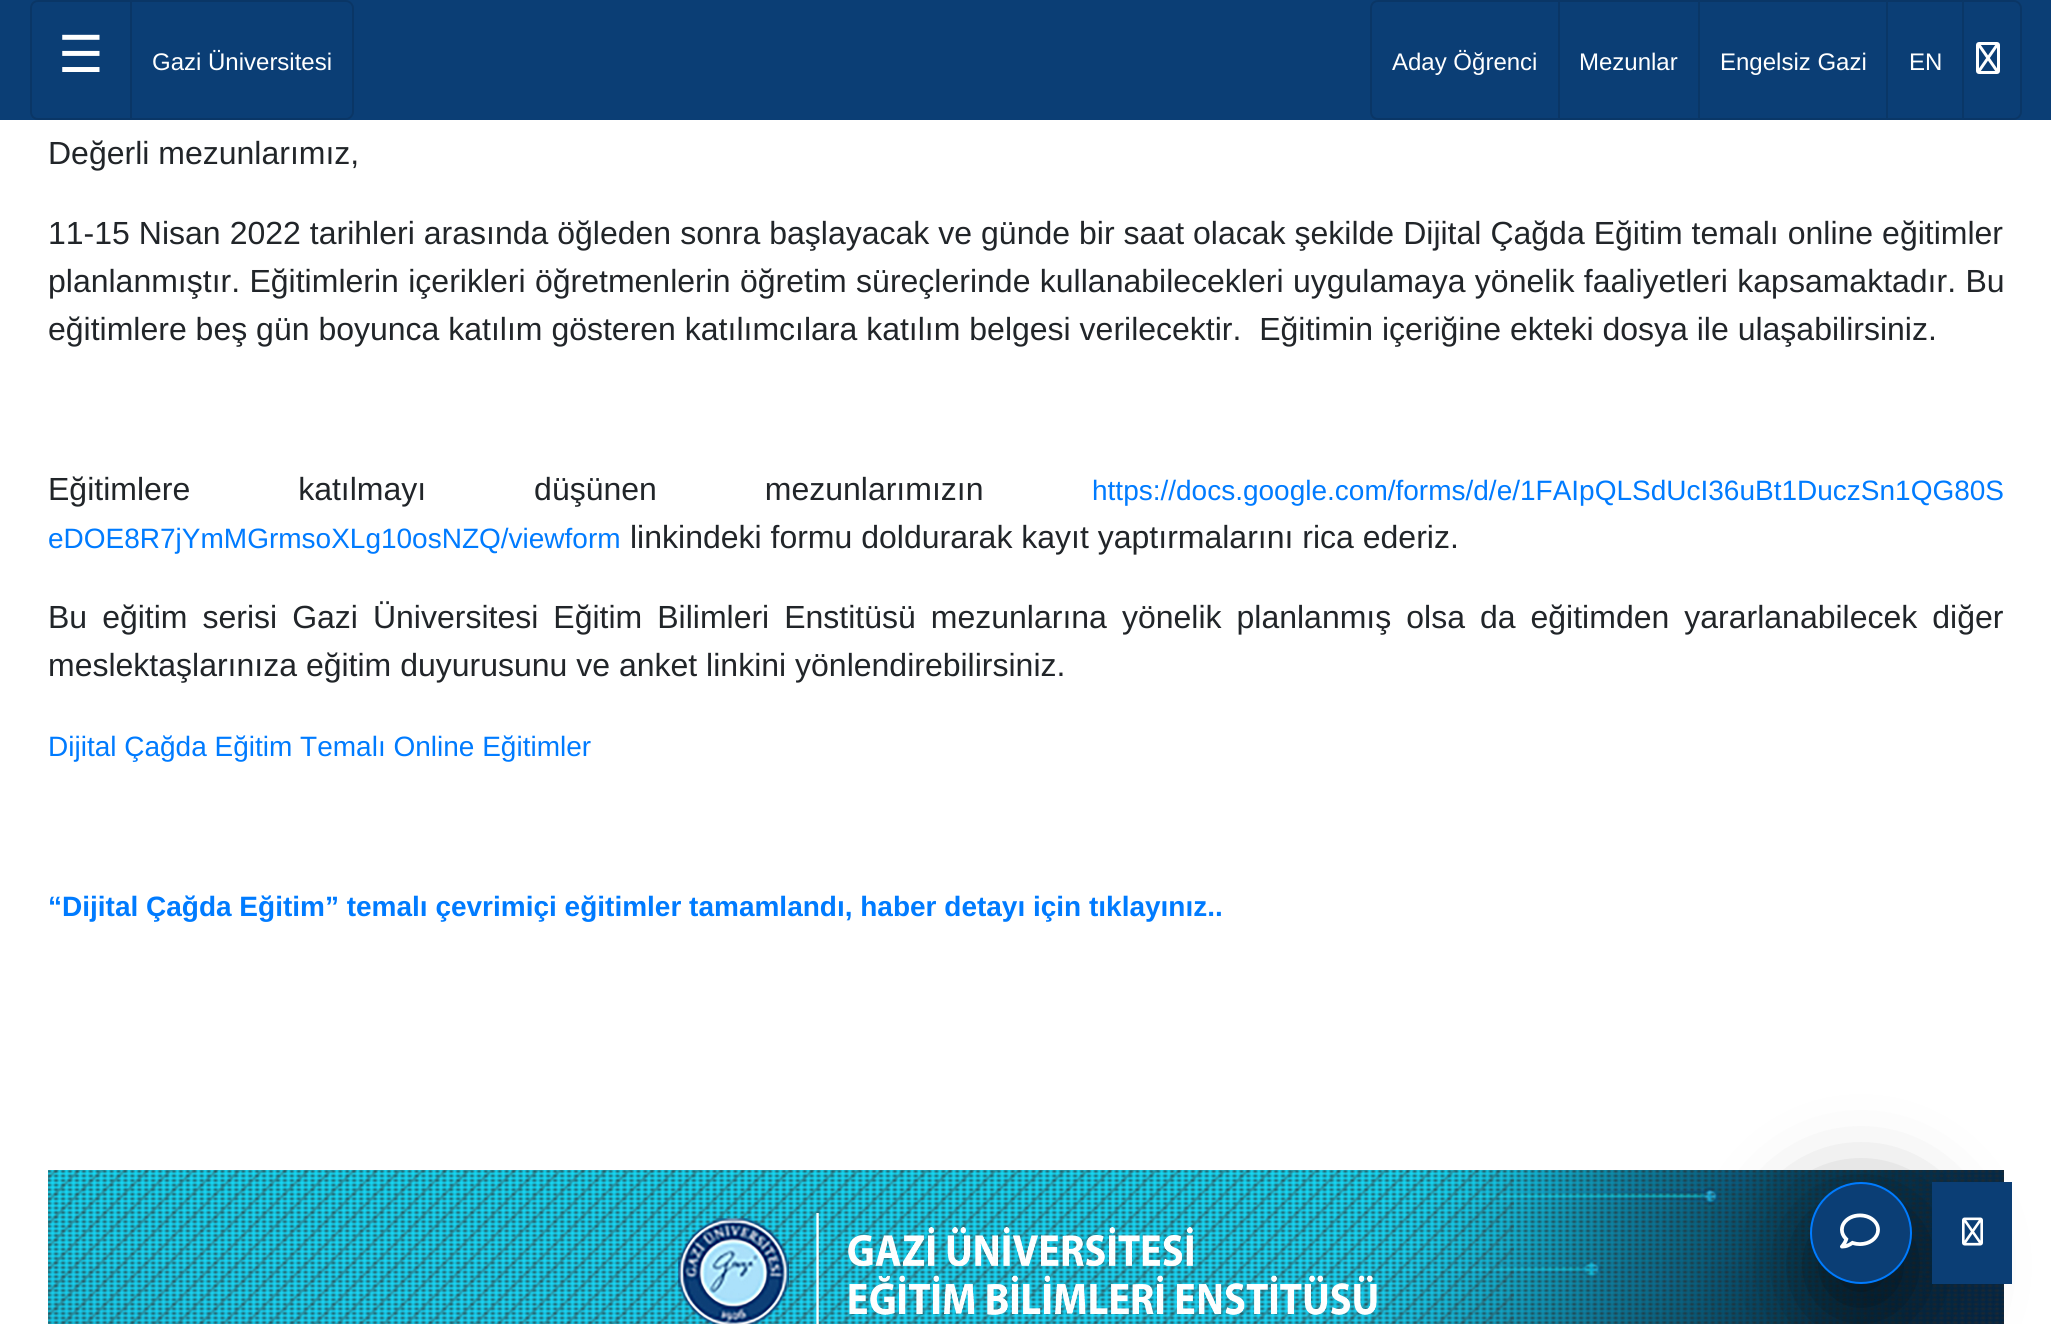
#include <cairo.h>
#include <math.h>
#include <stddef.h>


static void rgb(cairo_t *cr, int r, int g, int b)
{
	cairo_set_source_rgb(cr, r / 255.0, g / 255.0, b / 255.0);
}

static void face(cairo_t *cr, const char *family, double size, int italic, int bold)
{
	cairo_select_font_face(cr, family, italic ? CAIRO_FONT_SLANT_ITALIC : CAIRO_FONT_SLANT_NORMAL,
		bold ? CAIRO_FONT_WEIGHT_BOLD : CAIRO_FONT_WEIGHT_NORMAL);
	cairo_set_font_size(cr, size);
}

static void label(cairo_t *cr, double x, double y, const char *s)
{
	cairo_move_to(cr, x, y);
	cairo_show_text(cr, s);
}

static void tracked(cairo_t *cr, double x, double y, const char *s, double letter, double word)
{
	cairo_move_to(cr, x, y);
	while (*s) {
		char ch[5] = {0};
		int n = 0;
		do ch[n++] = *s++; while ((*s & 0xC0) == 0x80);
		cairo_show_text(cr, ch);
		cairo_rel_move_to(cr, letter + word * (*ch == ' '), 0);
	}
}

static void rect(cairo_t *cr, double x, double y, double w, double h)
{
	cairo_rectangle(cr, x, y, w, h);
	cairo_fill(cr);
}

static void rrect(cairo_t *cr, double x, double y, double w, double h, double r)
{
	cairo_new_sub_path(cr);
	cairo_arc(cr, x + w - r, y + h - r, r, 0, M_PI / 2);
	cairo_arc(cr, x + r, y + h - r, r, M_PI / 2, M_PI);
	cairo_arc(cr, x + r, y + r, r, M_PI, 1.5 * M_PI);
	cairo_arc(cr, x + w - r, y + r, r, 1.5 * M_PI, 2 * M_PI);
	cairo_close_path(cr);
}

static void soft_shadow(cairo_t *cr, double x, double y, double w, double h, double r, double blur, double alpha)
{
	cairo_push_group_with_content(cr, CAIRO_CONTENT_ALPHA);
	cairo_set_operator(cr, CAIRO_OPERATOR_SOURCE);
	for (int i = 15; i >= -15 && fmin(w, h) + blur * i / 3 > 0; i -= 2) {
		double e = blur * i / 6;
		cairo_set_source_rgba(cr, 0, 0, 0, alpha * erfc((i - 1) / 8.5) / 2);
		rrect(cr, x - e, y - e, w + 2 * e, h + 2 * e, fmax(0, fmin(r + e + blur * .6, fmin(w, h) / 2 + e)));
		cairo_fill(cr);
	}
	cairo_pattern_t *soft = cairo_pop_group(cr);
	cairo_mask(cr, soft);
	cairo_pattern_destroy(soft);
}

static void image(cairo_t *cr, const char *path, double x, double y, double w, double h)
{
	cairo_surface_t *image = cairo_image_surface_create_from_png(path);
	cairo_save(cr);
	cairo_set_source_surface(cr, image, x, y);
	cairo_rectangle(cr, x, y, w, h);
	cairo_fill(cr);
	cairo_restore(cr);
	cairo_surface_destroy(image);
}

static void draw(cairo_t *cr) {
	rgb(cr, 255, 255, 255);
	cairo_paint(cr);
	rgb(cr, 11, 62, 117);
	rect(cr, 0, 0, 2051, 120);
	cairo_new_path(cr);
	cairo_move_to(cr, 38, 1);
	cairo_line_to(cr, 131, 1);
	cairo_line_to(cr, 131, 119);
	cairo_line_to(cr, 38, 119);
	cairo_curve_to(cr, 34, 119, 31, 116, 31, 112);
	cairo_line_to(cr, 31, 8);
	cairo_curve_to(cr, 31, 4, 34, 1, 38, 1);
	cairo_close_path(cr);
	rgb(cr, 10, 54, 102);
	cairo_stroke(cr);
	face(cr, "DejaVu Sans", 51, 0, 0);
	rgb(cr, 255, 255, 255);
	label(cr, 58, 72, "☰");
	rgb(cr, 10, 54, 102);
	cairo_set_fill_rule(cr, CAIRO_FILL_RULE_EVEN_ODD);
	cairo_new_path(cr);
	cairo_move_to(cr, 132, 0);
	cairo_line_to(cr, 346, 0);
	cairo_curve_to(cr, 350, 0, 354, 4, 354, 8);
	cairo_line_to(cr, 354, 112);
	cairo_curve_to(cr, 354, 116, 350, 120, 346, 120);
	cairo_line_to(cr, 132, 120);
	cairo_close_path(cr);
	cairo_move_to(cr, 132, 2);
	cairo_line_to(cr, 346, 2);
	cairo_curve_to(cr, 349, 2, 352, 5, 352, 8);
	cairo_line_to(cr, 352, 112);
	cairo_curve_to(cr, 352, 115, 349, 118, 346, 118);
	cairo_line_to(cr, 132, 118);
	cairo_close_path(cr);
	cairo_fill(cr);
	face(cr, "Liberation Sans", 24, 0, 0);
	rgb(cr, 255, 255, 255);
	label(cr, 152, 70, "Gazi Üniversitesi");
	cairo_new_path(cr);
	cairo_move_to(cr, 1378, 1);
	cairo_line_to(cr, 1559, 1);
	cairo_line_to(cr, 1559, 119);
	cairo_line_to(cr, 1378, 119);
	cairo_curve_to(cr, 1374, 119, 1371, 116, 1371, 112);
	cairo_line_to(cr, 1371, 8);
	cairo_curve_to(cr, 1371, 4, 1374, 1, 1378, 1);
	cairo_close_path(cr);
	rgb(cr, 10, 54, 102);
	cairo_stroke(cr);
	rgb(cr, 255, 255, 255);
	label(cr, 1392, 70, "Aday Öğrenci");
	rgb(cr, 10, 54, 102);
	cairo_set_fill_rule(cr, CAIRO_FILL_RULE_WINDING);
	cairo_new_path(cr);
	cairo_move_to(cr, 1560, 0);
	cairo_line_to(cr, 1700, 0);
	cairo_line_to(cr, 1698, 2);
	cairo_line_to(cr, 1560, 2);
	cairo_close_path(cr);
	cairo_fill(cr);
	cairo_set_source_rgba(cr, 0, 0, 0, 0.12);
	cairo_new_path(cr);
	cairo_move_to(cr, 1700, 0);
	cairo_line_to(cr, 1700, 120);
	cairo_line_to(cr, 1698, 118);
	cairo_line_to(cr, 1698, 2);
	cairo_close_path(cr);
	cairo_fill(cr);
	cairo_new_path(cr);
	cairo_move_to(cr, 1700, 120);
	cairo_line_to(cr, 1560, 120);
	cairo_line_to(cr, 1560, 118);
	cairo_line_to(cr, 1698, 118);
	cairo_close_path(cr);
	cairo_fill(cr);
	rgb(cr, 255, 255, 255);
	label(cr, 1579, 70, "Mezunlar");
	rgb(cr, 10, 54, 102);
	cairo_new_path(cr);
	cairo_move_to(cr, 1700, 0);
	cairo_line_to(cr, 1888, 0);
	cairo_line_to(cr, 1886, 2);
	cairo_line_to(cr, 1700, 2);
	cairo_close_path(cr);
	cairo_fill(cr);
	cairo_set_source_rgba(cr, 0, 0, 0, 0.12);
	cairo_new_path(cr);
	cairo_move_to(cr, 1888, 0);
	cairo_line_to(cr, 1888, 120);
	cairo_line_to(cr, 1886, 118);
	cairo_line_to(cr, 1886, 2);
	cairo_close_path(cr);
	cairo_fill(cr);
	cairo_new_path(cr);
	cairo_move_to(cr, 1888, 120);
	cairo_line_to(cr, 1700, 120);
	cairo_line_to(cr, 1700, 118);
	cairo_line_to(cr, 1886, 118);
	cairo_close_path(cr);
	cairo_fill(cr);
	rgb(cr, 255, 255, 255);
	label(cr, 1720, 70, "Engelsiz Gazi");
	rgb(cr, 10, 54, 102);
	cairo_new_path(cr);
	cairo_move_to(cr, 1888, 0);
	cairo_line_to(cr, 1964, 0);
	cairo_line_to(cr, 1962, 2);
	cairo_line_to(cr, 1888, 2);
	cairo_close_path(cr);
	cairo_fill(cr);
	cairo_set_source_rgba(cr, 0, 0, 0, 0.12);
	cairo_new_path(cr);
	cairo_move_to(cr, 1964, 0);
	cairo_line_to(cr, 1964, 120);
	cairo_line_to(cr, 1962, 118);
	cairo_line_to(cr, 1962, 2);
	cairo_close_path(cr);
	cairo_fill(cr);
	cairo_new_path(cr);
	cairo_move_to(cr, 1964, 120);
	cairo_line_to(cr, 1888, 120);
	cairo_line_to(cr, 1888, 118);
	cairo_line_to(cr, 1962, 118);
	cairo_close_path(cr);
	cairo_fill(cr);
	rgb(cr, 255, 255, 255);
	label(cr, 1909, 70, "EN");
	rgb(cr, 10, 54, 102);
	cairo_set_fill_rule(cr, CAIRO_FILL_RULE_EVEN_ODD);
	cairo_new_path(cr);
	cairo_move_to(cr, 1964, 0);
	cairo_line_to(cr, 2014, 0);
	cairo_curve_to(cr, 2018, 0, 2022, 4, 2022, 8);
	cairo_line_to(cr, 2022, 112);
	cairo_curve_to(cr, 2022, 116, 2018, 120, 2014, 120);
	cairo_line_to(cr, 1964, 120);
	cairo_close_path(cr);
	cairo_move_to(cr, 1964, 2);
	cairo_line_to(cr, 2014, 2);
	cairo_curve_to(cr, 2017, 2, 2020, 5, 2020, 8);
	cairo_line_to(cr, 2020, 112);
	cairo_curve_to(cr, 2020, 115, 2017, 118, 2014, 118);
	cairo_line_to(cr, 1964, 118);
	cairo_close_path(cr);
	cairo_fill(cr);
	image(cr, "image0.png", 1976, 42, 24, 32);
	face(cr, "Liberation Sans", 32, 0, 0);
	rgb(cr, 33, 37, 41);
	label(cr, 48, 164, "Değerli mezunlarımız,");
	tracked(cr, 48, 244, "11-15 Nisan 2022 tarihleri arasında öğleden sonra başlayacak ve günde bir saat olacak şekilde Dijital Çağda Eğitim temalı online eğitimler", 0, 0.1);
	tracked(cr, 48, 292, "planlanmıştır. Eğitimlerin içerikleri öğretmenlerin öğretim süreçlerinde kullanabilecekleri uygulamaya yönelik faaliyetleri kapsamaktadır. Bu", 0, 0.5);
	label(cr, 48, 340, "eğitimlere beş gün boyunca katılım gösteren katılımcılara katılım belgesi verilecektir.  Eğitimin içeriğine ekteki dosya ile ulaşabilirsiniz.");
	tracked(cr, 48, 500, "Eğitimlere katılmayı düşünen mezunlarımızın", 0, 99);
	face(cr, "Liberation Sans", 28, 0, 0);
	rgb(cr, 0, 123, 255);
	label(cr, 1092, 500, "https://docs.google.com/forms/d/e/1FAIpQLSdUcI36uBt1DuczSn1QG80S");
	label(cr, 48, 548, "eDOE8R7jYmMGrmsoXLg10osNZQ/viewform");
	face(cr, "Liberation Sans", 32, 0, 0);
	rgb(cr, 33, 37, 41);
	label(cr, 630, 548, "linkindeki formu doldurarak kayıt yaptırmalarını rica ederiz.");
	tracked(cr, 48, 628, "Bu eğitim serisi Gazi Üniversitesi Eğitim Bilimleri Enstitüsü mezunlarına yönelik planlanmış olsa da eğitimden yararlanabilecek diğer", 0, 6.1);
	label(cr, 48, 676, "meslektaşlarınıza eğitim duyurusunu ve anket linkini yönlendirebilirsiniz.");
	face(cr, "Liberation Sans", 28, 0, 0);
	rgb(cr, 0, 123, 255);
	label(cr, 48, 756, "Dijital Çağda Eğitim Temalı Online Eğitimler");
	face(cr, "Liberation Sans", 28, 0, 1);
	label(cr, 48, 916, "“Dijital Çağda Eğitim” temalı çevrimiçi eğitimler tamamlandı, haber detayı için tıklayınız..");
	image(cr, "image1.png", 48, 1170, 1956, 154);
	rgb(cr, 0, 0, 0);
	soft_shadow(cr, 1810, 1214, 102, 102, 51, 48, 0.6);
	rgb(cr, 11, 62, 117);
	cairo_arc(cr, 1861, 1233, 50, 0, 2 * M_PI);
	cairo_fill_preserve(cr);
	rgb(cr, 0, 123, 255);
	cairo_stroke(cr);
	image(cr, "image2.png", 1840, 1213, 40, 36);
	rgb(cr, 11, 62, 117);
	rect(cr, 1932, 1182, 80, 102);
	image(cr, "image3.png", 1962, 1217, 21, 29);
}

int main(void) {
	cairo_surface_t *surface = cairo_image_surface_create(CAIRO_FORMAT_RGB24, 2051, 1324);
	cairo_t *cr = cairo_create(surface);
	cairo_font_options_t *options = cairo_font_options_create();
	cairo_font_options_set_hint_metrics(options, CAIRO_HINT_METRICS_OFF);
	cairo_font_options_set_hint_style(options, CAIRO_HINT_STYLE_NONE);
	cairo_set_font_options(cr, options);
	cairo_set_miter_limit(cr, 4);
	draw(cr);
	cairo_surface_write_to_png(surface, "render.png");
	cairo_font_options_destroy(options);
	cairo_destroy(cr);
	cairo_surface_destroy(surface);
	return 0;
}
